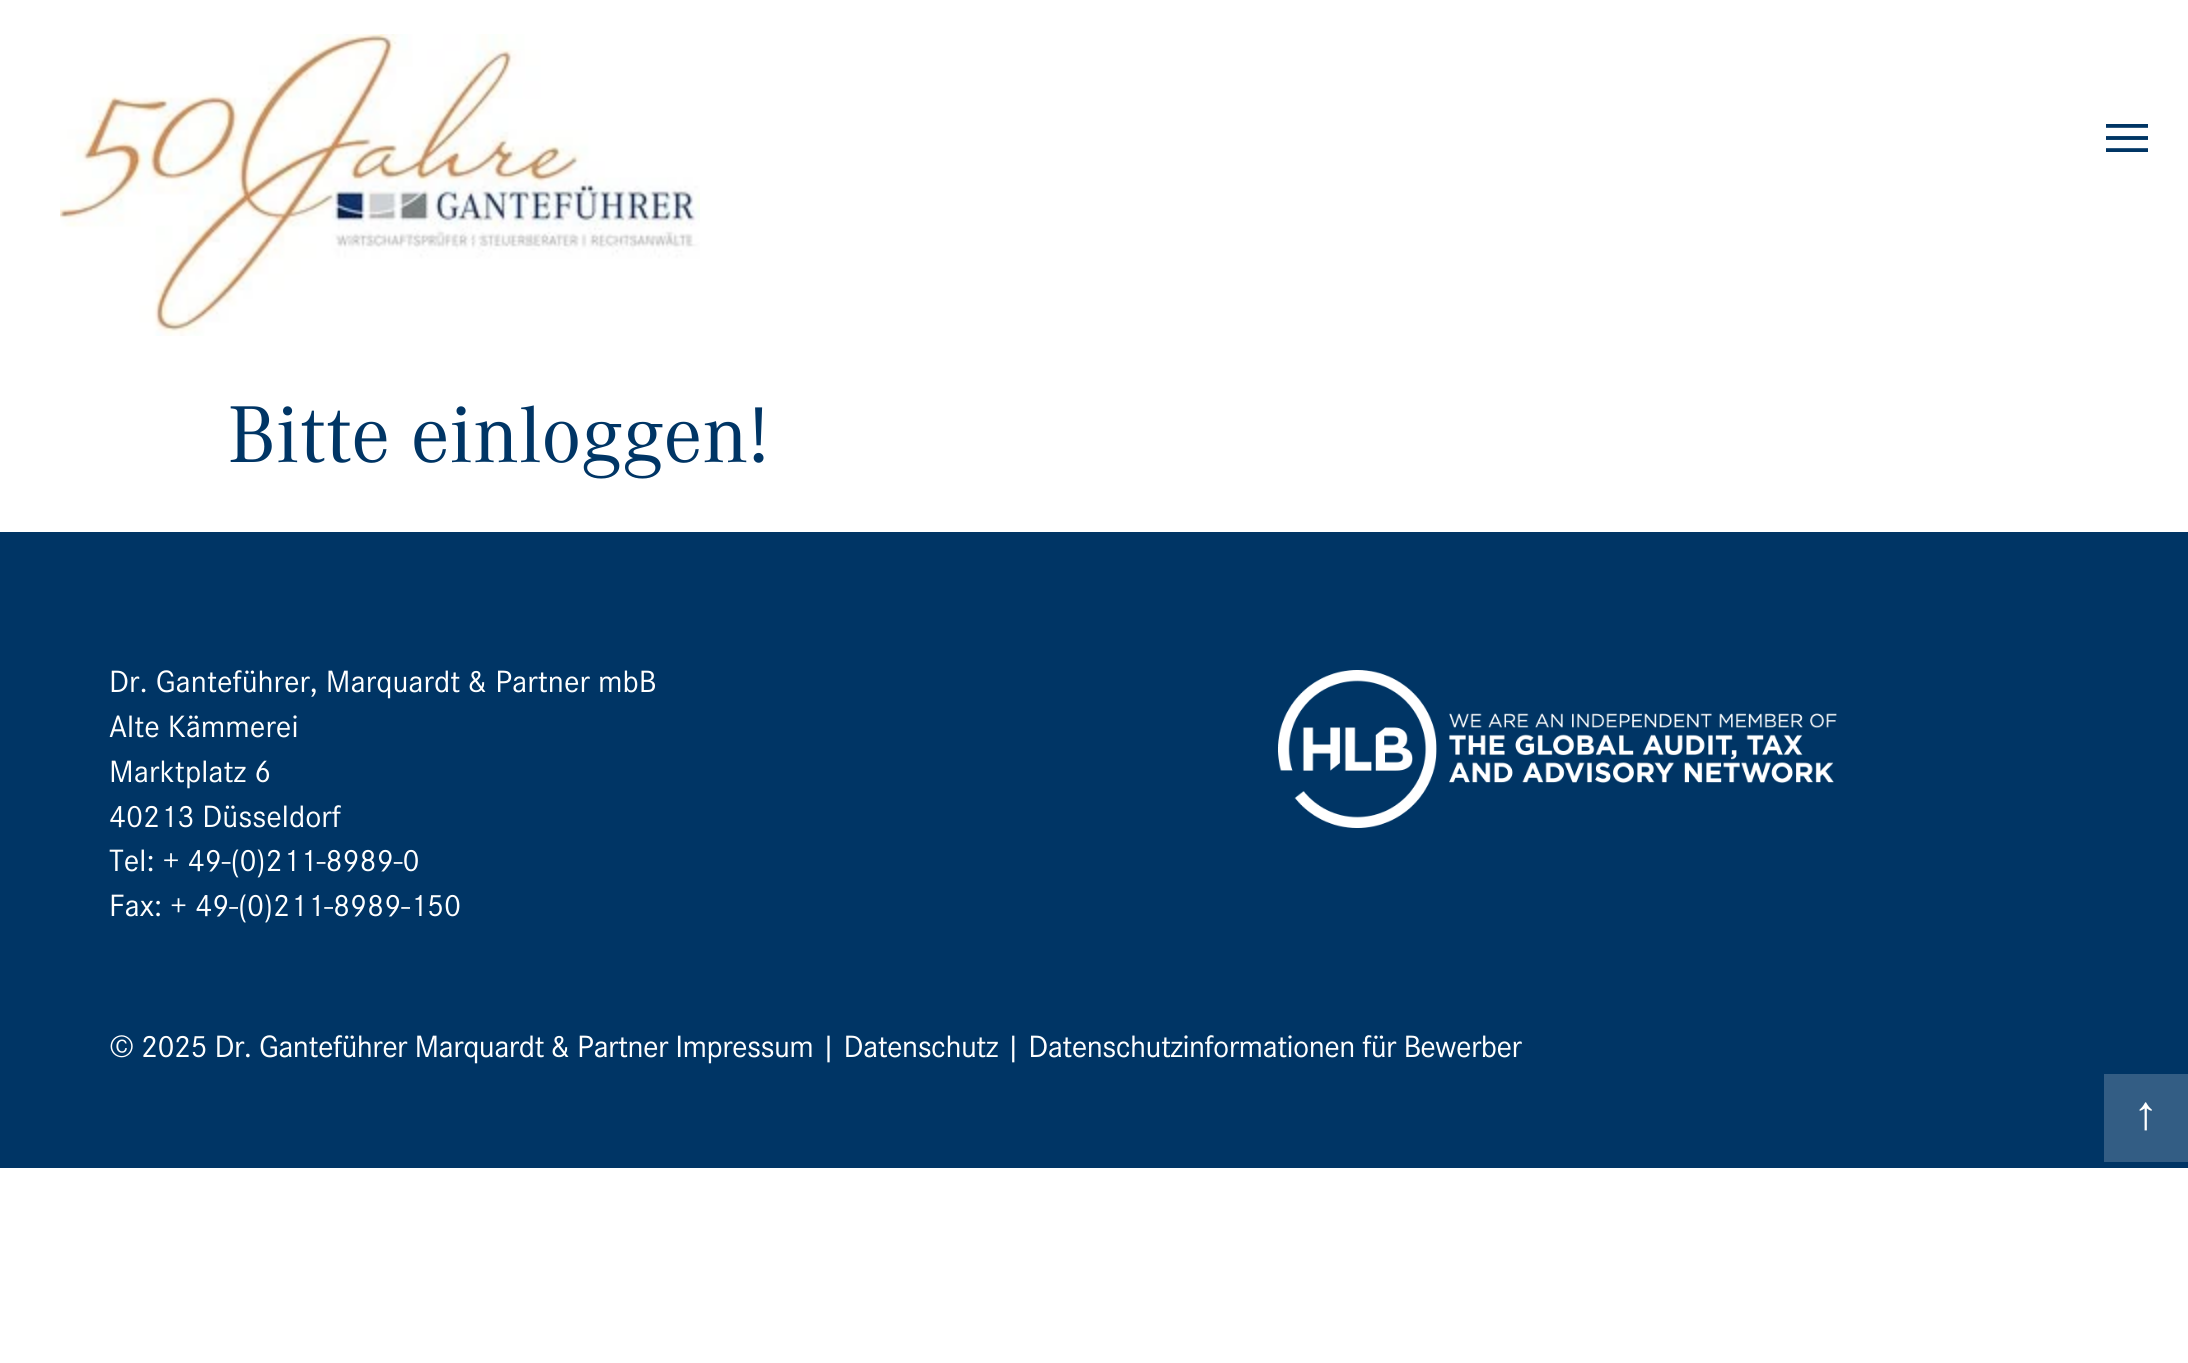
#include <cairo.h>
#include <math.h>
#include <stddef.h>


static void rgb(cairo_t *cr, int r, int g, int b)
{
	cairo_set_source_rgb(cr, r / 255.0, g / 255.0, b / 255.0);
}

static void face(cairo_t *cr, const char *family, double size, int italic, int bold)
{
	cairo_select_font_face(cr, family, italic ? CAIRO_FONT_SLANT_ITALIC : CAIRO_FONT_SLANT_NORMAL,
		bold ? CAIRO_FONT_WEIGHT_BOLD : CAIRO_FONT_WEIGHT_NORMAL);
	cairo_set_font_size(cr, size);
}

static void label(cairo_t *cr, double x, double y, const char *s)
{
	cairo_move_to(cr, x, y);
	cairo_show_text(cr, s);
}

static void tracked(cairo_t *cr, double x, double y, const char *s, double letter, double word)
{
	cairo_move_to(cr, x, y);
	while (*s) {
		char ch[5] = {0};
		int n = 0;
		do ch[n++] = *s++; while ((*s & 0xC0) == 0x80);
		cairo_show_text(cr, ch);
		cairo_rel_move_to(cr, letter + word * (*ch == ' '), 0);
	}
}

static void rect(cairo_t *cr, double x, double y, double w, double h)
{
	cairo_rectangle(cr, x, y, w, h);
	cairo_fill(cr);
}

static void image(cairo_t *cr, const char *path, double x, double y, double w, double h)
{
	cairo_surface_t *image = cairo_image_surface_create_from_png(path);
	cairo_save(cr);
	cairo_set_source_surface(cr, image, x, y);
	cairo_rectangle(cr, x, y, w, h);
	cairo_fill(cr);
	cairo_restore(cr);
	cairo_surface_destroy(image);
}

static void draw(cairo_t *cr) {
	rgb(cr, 255, 255, 255);
	cairo_paint(cr);
	image(cr, "image0.png", 60, 34, 640, 302);
	image(cr, "image1.png", 2106, 124, 42, 28);
	face(cr, "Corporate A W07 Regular", 83.5, 0, 0);
	rgb(cr, 0, 53, 101);
	tracked(cr, 228, 462, "Bitte einloggen!", 0.2, 0);
	rect(cr, 0, 532, 2188, 636);
	face(cr, "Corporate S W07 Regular", 32, 0, 0);
	rgb(cr, 255, 255, 255);
	label(cr, 109, 692, "Dr. Ganteführer, Marquardt & Partner mbB");
	label(cr, 109, 737, "Alte Kämmerei");
	label(cr, 109, 782, "Marktplatz 6");
	label(cr, 109, 827, "40213 Düsseldorf");
	label(cr, 109, 871, "Tel: + 49-(0)211-8989-0");
	label(cr, 109, 916, "Fax: + 49-(0)211-8989-150");
	image(cr, "image2.png", 1278, 670, 559, 158);
	tracked(cr, 109, 1057, "© 2025 Dr. Ganteführer Marquardt & Partner Impressum | Datenschutz | Datenschutzinformationen für Bewerber", -0.57, 0);
	rgb(cr, 51, 93, 132);
	rect(cr, 2104, 1074, 84, 88);
	face(cr, "Corporate S W07 Regular", 44, 0, 0);
	rgb(cr, 255, 255, 255);
	tracked(cr, 2131, 1131, "↑", -0.57, 0);
}

int main(void) {
	cairo_surface_t *surface = cairo_image_surface_create(CAIRO_FORMAT_RGB24, 2188, 1363);
	cairo_t *cr = cairo_create(surface);
	cairo_font_options_t *options = cairo_font_options_create();
	cairo_font_options_set_hint_metrics(options, CAIRO_HINT_METRICS_OFF);
	cairo_font_options_set_hint_style(options, CAIRO_HINT_STYLE_NONE);
	cairo_set_font_options(cr, options);
	cairo_set_miter_limit(cr, 4);
	draw(cr);
	cairo_surface_write_to_png(surface, "render.png");
	cairo_font_options_destroy(options);
	cairo_destroy(cr);
	cairo_surface_destroy(surface);
	return 0;
}
